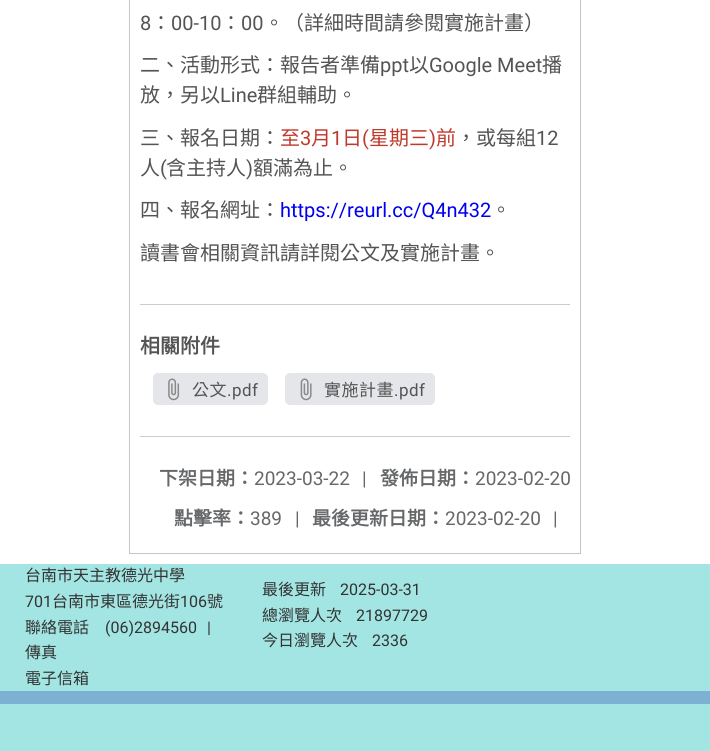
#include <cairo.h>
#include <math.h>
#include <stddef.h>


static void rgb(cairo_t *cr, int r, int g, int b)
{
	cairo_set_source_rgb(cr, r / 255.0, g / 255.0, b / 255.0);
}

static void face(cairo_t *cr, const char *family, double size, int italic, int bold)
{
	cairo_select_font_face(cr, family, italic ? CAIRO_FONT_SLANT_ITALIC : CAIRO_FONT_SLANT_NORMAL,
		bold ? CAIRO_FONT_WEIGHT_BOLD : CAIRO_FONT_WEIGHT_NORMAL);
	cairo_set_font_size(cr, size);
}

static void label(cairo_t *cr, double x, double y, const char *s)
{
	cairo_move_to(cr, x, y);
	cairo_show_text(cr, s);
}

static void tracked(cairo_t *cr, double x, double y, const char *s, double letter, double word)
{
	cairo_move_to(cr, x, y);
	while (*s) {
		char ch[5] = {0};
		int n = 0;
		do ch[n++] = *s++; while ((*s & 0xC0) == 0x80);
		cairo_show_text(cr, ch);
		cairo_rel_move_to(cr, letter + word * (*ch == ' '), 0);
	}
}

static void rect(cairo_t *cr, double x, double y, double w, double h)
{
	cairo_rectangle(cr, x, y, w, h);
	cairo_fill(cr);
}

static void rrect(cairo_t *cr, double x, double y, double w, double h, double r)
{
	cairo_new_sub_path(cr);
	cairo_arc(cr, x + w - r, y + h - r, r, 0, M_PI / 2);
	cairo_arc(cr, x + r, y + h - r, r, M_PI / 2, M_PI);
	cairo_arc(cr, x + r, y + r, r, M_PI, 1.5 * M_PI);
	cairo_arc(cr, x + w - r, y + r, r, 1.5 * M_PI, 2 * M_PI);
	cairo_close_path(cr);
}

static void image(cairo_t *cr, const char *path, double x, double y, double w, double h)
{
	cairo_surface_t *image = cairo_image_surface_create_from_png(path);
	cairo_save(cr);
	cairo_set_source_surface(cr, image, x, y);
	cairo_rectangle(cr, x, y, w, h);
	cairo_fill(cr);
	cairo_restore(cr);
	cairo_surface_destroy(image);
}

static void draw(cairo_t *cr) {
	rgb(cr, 255, 255, 255);
	cairo_paint(cr);
	cairo_rectangle(cr, 129.5, -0.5, 451, 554);
	rgb(cr, 197, 197, 197);
	cairo_set_line_width(cr, 1);
	cairo_stroke(cr);
	face(cr, "Roboto", 20, 0, 0);
	rgb(cr, 84, 84, 84);
	label(cr, 140, 30, "8");
	face(cr, "Noto Sans CJK TC", 20, 0, 0);
	label(cr, 151, 30, "：");
	face(cr, "Roboto", 20, 0, 0);
	label(cr, 171, 30, "00-10");
	face(cr, "Noto Sans CJK TC", 20, 0, 0);
	label(cr, 221, 30, "：");
	face(cr, "Roboto", 20, 0, 0);
	label(cr, 241, 30, "00");
	face(cr, "Noto Sans CJK TC", 20, 0, 0);
	label(cr, 264, 30, "。（詳細時間請參閱實施計畫）");
	label(cr, 140, 72, "二、活動形式：報告者準備");
	face(cr, "Roboto", 20, 0, 0);
	label(cr, 380, 72, "ppt");
	face(cr, "Noto Sans CJK TC", 20, 0, 0);
	label(cr, 409, 72, "以");
	face(cr, "Roboto", 20, 0, 0);
	label(cr, 429, 72, "Google Meet");
	face(cr, "Noto Sans CJK TC", 20, 0, 0);
	label(cr, 542, 72, "播");
	label(cr, 140, 102, "放，另以");
	face(cr, "Roboto", 20, 0, 0);
	label(cr, 220, 102, "Line");
	face(cr, "Noto Sans CJK TC", 20, 0, 0);
	label(cr, 257, 102, "群組輔助。");
	label(cr, 140, 145, "三、報名日期：");
	rgb(cr, 192, 57, 43);
	label(cr, 280, 145, "至");
	face(cr, "Roboto", 20, 0, 0);
	label(cr, 300, 145, "3");
	face(cr, "Noto Sans CJK TC", 20, 0, 0);
	label(cr, 311, 145, "月");
	face(cr, "Roboto", 20, 0, 0);
	label(cr, 331, 145, "1");
	face(cr, "Noto Sans CJK TC", 20, 0, 0);
	label(cr, 342, 145, "日");
	face(cr, "Roboto", 20, 0, 0);
	label(cr, 362, 145, "(");
	face(cr, "Noto Sans CJK TC", 20, 0, 0);
	label(cr, 369, 145, "星期三");
	face(cr, "Roboto", 20, 0, 0);
	label(cr, 429, 145, ")");
	face(cr, "Noto Sans CJK TC", 20, 0, 0);
	label(cr, 436, 145, "前");
	rgb(cr, 84, 84, 84);
	label(cr, 456, 145, "，或每組");
	face(cr, "Roboto", 20, 0, 0);
	label(cr, 536, 145, "12");
	face(cr, "Noto Sans CJK TC", 20, 0, 0);
	label(cr, 140, 175, "人");
	face(cr, "Roboto", 20, 0, 0);
	label(cr, 160, 175, "(");
	face(cr, "Noto Sans CJK TC", 20, 0, 0);
	label(cr, 166, 175, "含主持人");
	face(cr, "Roboto", 20, 0, 0);
	label(cr, 246, 175, ")");
	face(cr, "Noto Sans CJK TC", 20, 0, 0);
	label(cr, 253, 175, "額滿為止。");
	label(cr, 140, 217, "四、報名網址：");
	face(cr, "Roboto", 20, 0, 0);
	rgb(cr, 0, 0, 238);
	label(cr, 280, 217, "https://reurl.cc/Q4n432");
	face(cr, "Noto Sans CJK TC", 20, 0, 0);
	rgb(cr, 84, 84, 84);
	label(cr, 491, 217, "。");
	label(cr, 140, 260, "讀書會相關資訊請詳閱公文及實施計畫。");
	rgb(cr, 204, 204, 204);
	rect(cr, 140, 304, 430, 1);
	face(cr, "Noto Sans CJK TC", 20, 0, 1);
	rgb(cr, 84, 84, 84);
	label(cr, 140, 353, "相關附件");
	rgb(cr, 229, 230, 233);
	rrect(cr, 153.5, 373.5, 114, 31, 4.5);
	cairo_fill_preserve(cr);
	cairo_stroke(cr);
	image(cr, "image0.png", 168, 378, 12, 23);
	face(cr, "Noto Sans CJK TC", 17, 0, 0);
	rgb(cr, 84, 84, 84);
	tracked(cr, 192, 396, "公文", 0.5, 0);
	face(cr, "Roboto", 17, 0, 0);
	tracked(cr, 227, 396, ".pdf", 0.5, 0);
	rgb(cr, 229, 230, 233);
	rrect(cr, 285.5, 373.5, 149, 31, 4.5);
	cairo_fill_preserve(cr);
	cairo_stroke(cr);
	image(cr, "image1.png", 300, 378, 12, 23);
	face(cr, "Noto Sans CJK TC", 17, 0, 0);
	rgb(cr, 84, 84, 84);
	tracked(cr, 324, 396, "實施計畫", 0.5, 0);
	face(cr, "Roboto", 17, 0, 0);
	tracked(cr, 394, 396, ".pdf", 0.5, 0);
	rgb(cr, 204, 204, 204);
	rect(cr, 140, 436, 430, 1);
	face(cr, "Noto Sans CJK TC", 19, 0, 1);
	rgb(cr, 101, 103, 105);
	label(cr, 159, 485, "下架日期：");
	face(cr, "Roboto", 19, 0, 0);
	label(cr, 254, 485, "2023-03-22");
	label(cr, 362, 485, "|");
	face(cr, "Noto Sans CJK TC", 19, 0, 1);
	label(cr, 380, 485, "發佈日期：");
	face(cr, "Roboto", 19, 0, 0);
	label(cr, 475, 485, "2023-02-20");
	face(cr, "Noto Sans CJK TC", 19, 0, 1);
	label(cr, 174, 525, "點擊率：");
	face(cr, "Roboto", 19, 0, 0);
	label(cr, 250, 525, "389");
	label(cr, 295, 525, "|");
	face(cr, "Noto Sans CJK TC", 19, 0, 1);
	label(cr, 312, 525, "最後更新日期：");
	face(cr, "Roboto", 19, 0, 0);
	label(cr, 445, 525, "2023-02-20");
	label(cr, 553, 525, "|");
	rgb(cr, 163, 229, 227);
	rect(cr, 0, 564, 710, 187);
	face(cr, "Noto Sans CJK TC", 16, 0, 0);
	rgb(cr, 51, 51, 51);
	label(cr, 25, 581, "台南市天主教德光中學");
	face(cr, "Roboto", 16, 0, 0);
	label(cr, 25, 607, "701");
	face(cr, "Noto Sans CJK TC", 16, 0, 0);
	label(cr, 52, 607, "台南市東區德光街");
	face(cr, "Roboto", 16, 0, 0);
	label(cr, 180, 607, "106");
	face(cr, "Noto Sans CJK TC", 16, 0, 0);
	label(cr, 207, 607, "號");
	label(cr, 25, 633, "聯絡電話");
	face(cr, "Roboto", 16, 0, 0);
	label(cr, 105, 633, "(06)2894560");
	label(cr, 207, 633, "|");
	face(cr, "Noto Sans CJK TC", 16, 0, 0);
	label(cr, 25, 658, "傳真");
	label(cr, 25, 684, "電子信箱");
	label(cr, 262, 595, "最後更新");
	face(cr, "Roboto", 16, 0, 0);
	label(cr, 340, 595, "2025-03-31");
	face(cr, "Noto Sans CJK TC", 16, 0, 0);
	label(cr, 262, 621, "總瀏覽人次");
	face(cr, "Roboto", 16, 0, 0);
	label(cr, 356, 621, "21897729");
	face(cr, "Noto Sans CJK TC", 16, 0, 0);
	label(cr, 262, 646, "今日瀏覽人次");
	face(cr, "Roboto", 16, 0, 0);
	label(cr, 372, 646, "2336");
	rgb(cr, 124, 177, 211);
	rect(cr, 0, 691, 710, 13);
}

int main(void) {
	cairo_surface_t *surface = cairo_image_surface_create(CAIRO_FORMAT_RGB24, 710, 751);
	cairo_t *cr = cairo_create(surface);
	cairo_font_options_t *options = cairo_font_options_create();
	cairo_font_options_set_hint_metrics(options, CAIRO_HINT_METRICS_OFF);
	cairo_font_options_set_hint_style(options, CAIRO_HINT_STYLE_NONE);
	cairo_set_font_options(cr, options);
	cairo_set_miter_limit(cr, 4);
	draw(cr);
	cairo_surface_write_to_png(surface, "render.png");
	cairo_font_options_destroy(options);
	cairo_destroy(cr);
	cairo_surface_destroy(surface);
	return 0;
}
